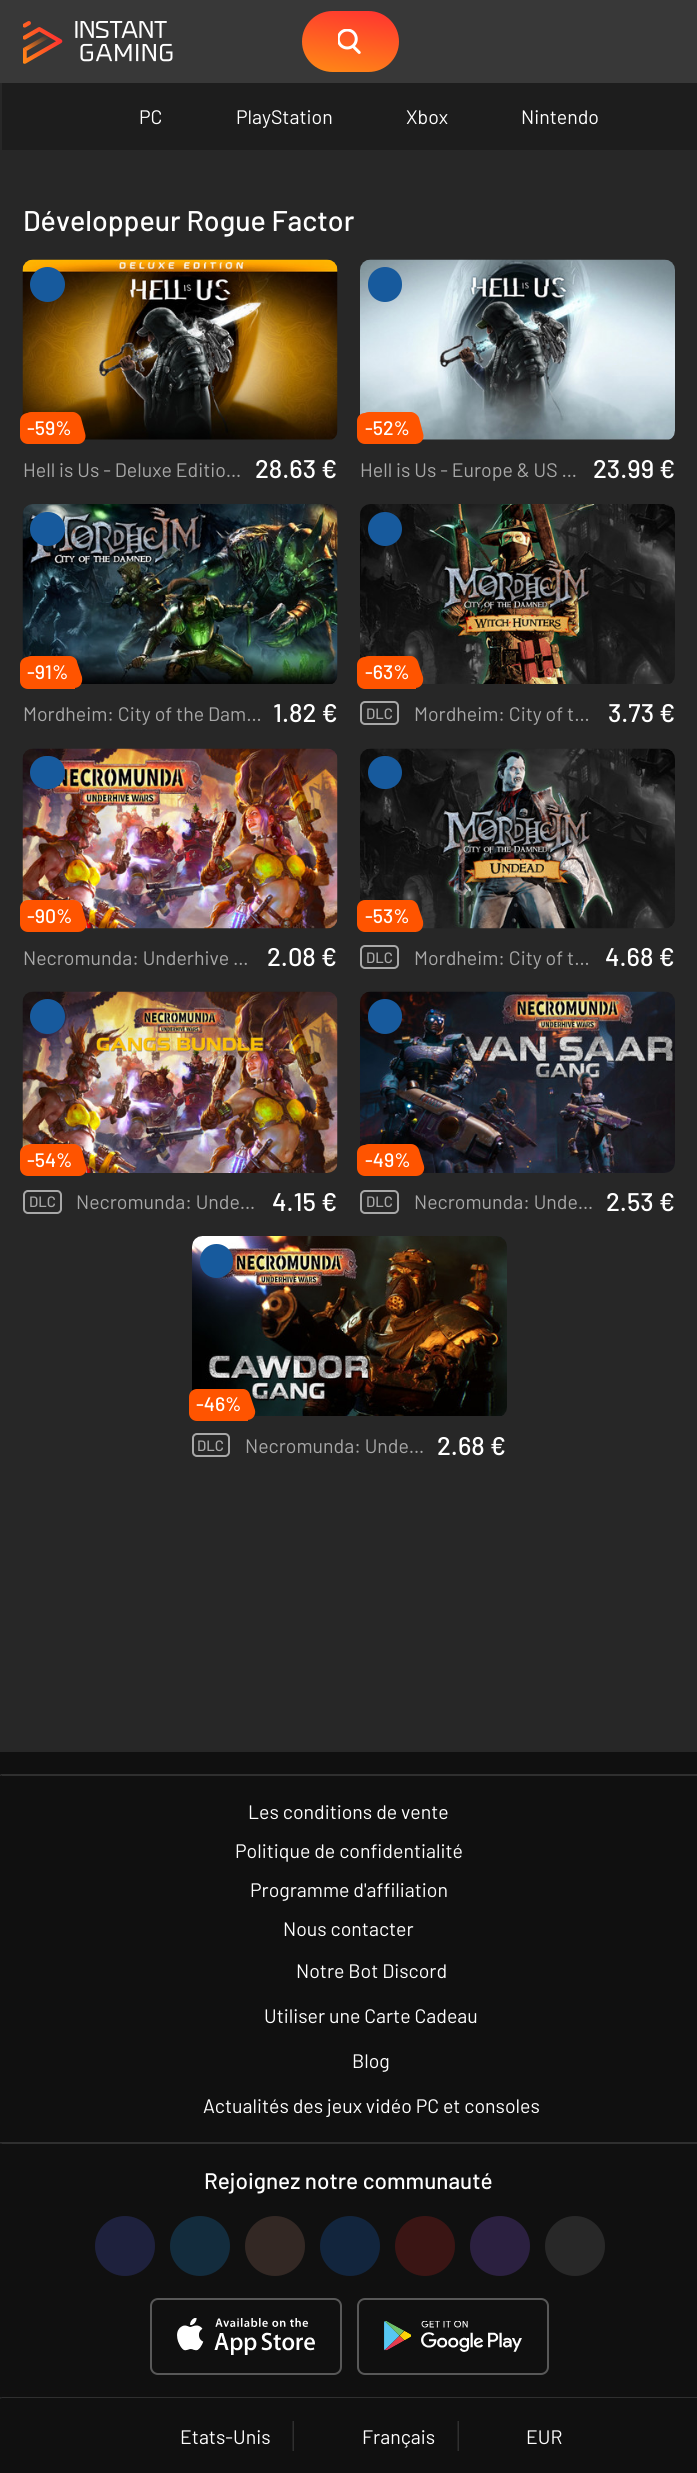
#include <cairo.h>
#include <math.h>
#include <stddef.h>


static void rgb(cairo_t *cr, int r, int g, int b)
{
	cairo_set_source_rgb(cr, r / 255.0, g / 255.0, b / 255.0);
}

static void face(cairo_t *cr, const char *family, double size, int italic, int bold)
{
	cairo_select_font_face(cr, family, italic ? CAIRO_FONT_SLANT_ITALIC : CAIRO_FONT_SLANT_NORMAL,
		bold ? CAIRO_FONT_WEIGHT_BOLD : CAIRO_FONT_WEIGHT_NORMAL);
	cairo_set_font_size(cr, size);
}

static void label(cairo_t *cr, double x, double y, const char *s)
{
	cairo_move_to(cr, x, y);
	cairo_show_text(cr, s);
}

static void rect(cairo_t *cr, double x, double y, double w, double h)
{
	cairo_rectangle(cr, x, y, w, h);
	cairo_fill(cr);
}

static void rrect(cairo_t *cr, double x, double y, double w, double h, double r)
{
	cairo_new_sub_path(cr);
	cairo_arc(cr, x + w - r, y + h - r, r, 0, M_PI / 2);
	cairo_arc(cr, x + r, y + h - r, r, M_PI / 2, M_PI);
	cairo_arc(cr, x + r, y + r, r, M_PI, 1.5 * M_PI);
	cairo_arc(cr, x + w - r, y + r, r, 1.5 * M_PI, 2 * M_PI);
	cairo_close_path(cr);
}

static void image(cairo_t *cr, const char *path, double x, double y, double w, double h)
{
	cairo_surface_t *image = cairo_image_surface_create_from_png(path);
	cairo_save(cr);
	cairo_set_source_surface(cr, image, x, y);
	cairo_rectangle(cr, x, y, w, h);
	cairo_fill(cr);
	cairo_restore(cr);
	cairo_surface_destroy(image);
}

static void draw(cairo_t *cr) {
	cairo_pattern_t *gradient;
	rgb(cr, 39, 39, 39);
	cairo_paint(cr);
	rgb(cr, 56, 56, 56);
	rect(cr, 0, 0, 697, 83);
	image(cr, "image0.png", 23, 21, 150, 43);
	gradient = cairo_pattern_create_linear(343, 79, 356, 3.1);
	cairo_pattern_add_color_stop_rgba(gradient, 0, 1, 0.541, 0.082, 1);
	cairo_pattern_add_color_stop_rgba(gradient, 1, 1, 0.192, 0.192, 1);
	cairo_set_source(cr, gradient);
	cairo_pattern_destroy(gradient);
	rrect(cr, 302, 11, 97, 61, 30.5);
	cairo_fill(cr);
	image(cr, "image1.png", 338, 29, 23, 25);
	rgb(cr, 29, 29, 29);
	rect(cr, 2, 83, 695, 67);
	face(cr, "Barlow", 19.5, 0, 0);
	rgb(cr, 255, 255, 255);
	label(cr, 139, 124, "PC");
	label(cr, 236, 124, "PlayStation");
	label(cr, 406, 124, "Xbox");
	label(cr, 521, 124, "Nintendo");
	face(cr, "Barlow Medium", 28.5, 0, 0);
	label(cr, 23, 231, "Développeur Rogue Factor");
	image(cr, "image2.png", 22, 259, 316, 181);
	rgb(cr, 23, 90, 157);
	cairo_arc(cr, 47.5, 284.5, 17.5, 0, 2 * M_PI);
	cairo_fill(cr);
	rgb(cr, 255, 84, 0);
	cairo_new_path(cr);
	cairo_move_to(cr, 28, 413);
	cairo_line_to(cr, 70, 413);
	cairo_curve_to(cr, 74.5, 413, 78, 416.5, 78, 421);
	cairo_line_to(cr, 78, 444);
	cairo_line_to(cr, 28, 444);
	cairo_curve_to(cr, 23.5, 444, 20, 440.5, 20, 436);
	cairo_line_to(cr, 20, 421);
	cairo_curve_to(cr, 20, 416.5, 23.5, 413, 28, 413);
	cairo_close_path(cr);
	cairo_fill(cr);
	cairo_new_path(cr);
	cairo_move_to(cr, 31, 412);
	cairo_line_to(cr, 73, 412);
	cairo_curve_to(cr, 76, 412, 80, 415, 81, 418);
	cairo_line_to(cr, 85, 433);
	cairo_curve_to(cr, 87, 439, 83, 444, 78, 444);
	cairo_line_to(cr, 36, 444);
	cairo_curve_to(cr, 33, 444, 29, 441, 28, 438);
	cairo_line_to(cr, 24, 423);
	cairo_curve_to(cr, 22, 417, 26, 412, 31, 412);
	cairo_close_path(cr);
	cairo_fill(cr);
	face(cr, "Barlow Medium", 19.5, 0, 0);
	rgb(cr, 255, 255, 255);
	label(cr, 27, 435, "-59%");
	face(cr, "Barlow", 19.5, 0, 0);
	rgb(cr, 168, 168, 168);
	label(cr, 23, 477, "Hell is Us - Deluxe Editio…");
	face(cr, "Barlow Medium", 25.5, 0, 0);
	rgb(cr, 255, 255, 255);
	label(cr, 255, 478, "28.63 €");
	image(cr, "image3.png", 360, 259, 315, 181);
	rgb(cr, 23, 90, 157);
	rrect(cr, 368, 267, 34, 35, 17);
	cairo_fill(cr);
	rgb(cr, 255, 84, 0);
	cairo_new_path(cr);
	cairo_move_to(cr, 365, 413);
	cairo_line_to(cr, 408, 413);
	cairo_curve_to(cr, 412.5, 413, 416, 416.5, 416, 421);
	cairo_line_to(cr, 416, 444);
	cairo_line_to(cr, 365, 444);
	cairo_curve_to(cr, 360.5, 444, 357, 440.5, 357, 436);
	cairo_line_to(cr, 357, 421);
	cairo_curve_to(cr, 357, 416.5, 360.5, 413, 365, 413);
	cairo_close_path(cr);
	cairo_fill(cr);
	cairo_new_path(cr);
	cairo_move_to(cr, 369, 412);
	cairo_line_to(cr, 411, 412);
	cairo_curve_to(cr, 414, 412, 418, 415, 419, 418);
	cairo_line_to(cr, 423, 433);
	cairo_curve_to(cr, 425, 439, 421, 444, 415, 444);
	cairo_line_to(cr, 374, 444);
	cairo_curve_to(cr, 370, 444, 367, 441, 366, 438);
	cairo_line_to(cr, 361, 423);
	cairo_curve_to(cr, 360, 417, 363, 412, 369, 412);
	cairo_close_path(cr);
	cairo_fill(cr);
	face(cr, "Barlow Medium", 19.5, 0, 0);
	rgb(cr, 255, 255, 255);
	label(cr, 365, 435, "-52%");
	face(cr, "Barlow", 19.5, 0, 0);
	rgb(cr, 168, 168, 168);
	label(cr, 360, 477, "Hell is Us - Europe & US …");
	face(cr, "Barlow Medium", 25.5, 0, 0);
	rgb(cr, 255, 255, 255);
	label(cr, 593, 478, "23.99 €");
	image(cr, "image4.png", 22, 504, 316, 180);
	rgb(cr, 23, 90, 157);
	rrect(cr, 30, 512, 35, 34, 17);
	cairo_fill(cr);
	rgb(cr, 255, 84, 0);
	cairo_new_path(cr);
	cairo_move_to(cr, 28, 657);
	cairo_line_to(cr, 67, 657);
	cairo_curve_to(cr, 71.5, 657, 75, 660.5, 75, 665);
	cairo_line_to(cr, 75, 689);
	cairo_line_to(cr, 28, 689);
	cairo_curve_to(cr, 23.5, 689, 20, 685.5, 20, 681);
	cairo_line_to(cr, 20, 665);
	cairo_curve_to(cr, 20, 660.5, 23.5, 657, 28, 657);
	cairo_close_path(cr);
	cairo_fill(cr);
	cairo_new_path(cr);
	cairo_move_to(cr, 31, 656);
	cairo_line_to(cr, 70, 656);
	cairo_curve_to(cr, 73, 656, 77, 659, 77, 662);
	cairo_line_to(cr, 82, 677);
	cairo_curve_to(cr, 83, 683, 80, 688, 74, 688);
	cairo_line_to(cr, 36, 688);
	cairo_curve_to(cr, 33, 688, 29, 685, 28, 682);
	cairo_line_to(cr, 24, 667);
	cairo_curve_to(cr, 22, 661, 26, 656, 31, 656);
	cairo_close_path(cr);
	cairo_fill(cr);
	face(cr, "Barlow Medium", 19.5, 0, 0);
	rgb(cr, 255, 255, 255);
	label(cr, 27, 679, "-91%");
	face(cr, "Barlow", 19.5, 0, 0);
	rgb(cr, 168, 168, 168);
	label(cr, 23, 721, "Mordheim: City of the Dam…");
	face(cr, "Barlow Medium", 25.5, 0, 0);
	rgb(cr, 255, 255, 255);
	label(cr, 273, 722, "1.82 €");
	image(cr, "image5.png", 360, 504, 315, 180);
	rgb(cr, 23, 90, 157);
	cairo_arc(cr, 385, 529, 17, 0, 2 * M_PI);
	cairo_fill(cr);
	rgb(cr, 255, 84, 0);
	cairo_new_path(cr);
	cairo_move_to(cr, 365, 657);
	cairo_line_to(cr, 408, 657);
	cairo_curve_to(cr, 412.5, 657, 416, 660.5, 416, 665);
	cairo_line_to(cr, 416, 689);
	cairo_line_to(cr, 365, 689);
	cairo_curve_to(cr, 360.5, 689, 357, 685.5, 357, 681);
	cairo_line_to(cr, 357, 665);
	cairo_curve_to(cr, 357, 660.5, 360.5, 657, 365, 657);
	cairo_close_path(cr);
	cairo_fill(cr);
	cairo_new_path(cr);
	cairo_move_to(cr, 369, 656);
	cairo_line_to(cr, 411, 656);
	cairo_curve_to(cr, 414, 656, 417, 659, 418, 662);
	cairo_line_to(cr, 423, 677);
	cairo_curve_to(cr, 424, 683, 421, 688, 415, 688);
	cairo_line_to(cr, 374, 688);
	cairo_curve_to(cr, 370, 688, 367, 685, 366, 682);
	cairo_line_to(cr, 361, 667);
	cairo_curve_to(cr, 360, 661, 363, 656, 369, 656);
	cairo_close_path(cr);
	cairo_fill(cr);
	face(cr, "Barlow Medium", 19.5, 0, 0);
	rgb(cr, 255, 255, 255);
	label(cr, 365, 679, "-63%");
	rrect(cr, 361, 702, 37, 22, 4);
	rgb(cr, 168, 168, 168);
	cairo_stroke(cr);
	face(cr, "Barlow Medium", 15, 0, 0);
	label(cr, 366, 719, "DLC");
	face(cr, "Barlow", 19.5, 0, 0);
	label(cr, 414, 721, "Mordheim: City of t…");
	face(cr, "Barlow Medium", 25.5, 0, 0);
	rgb(cr, 255, 255, 255);
	label(cr, 608, 722, "3.73 €");
	image(cr, "image6.png", 22, 748, 316, 181);
	rgb(cr, 23, 90, 157);
	rrect(cr, 30, 756, 35, 33, 16.5);
	cairo_fill(cr);
	rgb(cr, 255, 84, 0);
	cairo_new_path(cr);
	cairo_move_to(cr, 28, 900);
	cairo_line_to(cr, 70, 900);
	cairo_curve_to(cr, 74.5, 900, 78, 903.5, 78, 908);
	cairo_line_to(cr, 78, 932);
	cairo_line_to(cr, 28, 932);
	cairo_curve_to(cr, 23.5, 932, 20, 928.5, 20, 924);
	cairo_line_to(cr, 20, 908);
	cairo_curve_to(cr, 20, 903.5, 23.5, 900, 28, 900);
	cairo_close_path(cr);
	cairo_fill(cr);
	cairo_new_path(cr);
	cairo_move_to(cr, 31, 900);
	cairo_line_to(cr, 74, 900);
	cairo_curve_to(cr, 77, 900, 81, 903, 82, 906);
	cairo_line_to(cr, 86, 921);
	cairo_curve_to(cr, 88, 927, 84, 932, 78, 932);
	cairo_line_to(cr, 36, 932);
	cairo_curve_to(cr, 33, 932, 29, 929, 28, 926);
	cairo_line_to(cr, 24, 911);
	cairo_curve_to(cr, 22, 905, 26, 900, 31, 900);
	cairo_close_path(cr);
	cairo_fill(cr);
	face(cr, "Barlow Medium", 19.5, 0, 0);
	rgb(cr, 255, 255, 255);
	label(cr, 27, 923, "-90%");
	face(cr, "Barlow", 19.5, 0, 0);
	rgb(cr, 168, 168, 168);
	label(cr, 23, 965, "Necromunda: Underhive …");
	face(cr, "Barlow Medium", 25.5, 0, 0);
	rgb(cr, 255, 255, 255);
	label(cr, 267, 966, "2.08 €");
	image(cr, "image7.png", 360, 748, 315, 181);
	rgb(cr, 23, 90, 157);
	rrect(cr, 368, 756, 34, 33, 16.5);
	cairo_fill(cr);
	rgb(cr, 255, 84, 0);
	cairo_new_path(cr);
	cairo_move_to(cr, 365, 900);
	cairo_line_to(cr, 408, 900);
	cairo_curve_to(cr, 412.5, 900, 416, 903.5, 416, 908);
	cairo_line_to(cr, 416, 932);
	cairo_line_to(cr, 365, 932);
	cairo_curve_to(cr, 360.5, 932, 357, 928.5, 357, 924);
	cairo_line_to(cr, 357, 908);
	cairo_curve_to(cr, 357, 903.5, 360.5, 900, 365, 900);
	cairo_close_path(cr);
	cairo_fill(cr);
	cairo_new_path(cr);
	cairo_move_to(cr, 369, 900);
	cairo_line_to(cr, 411, 900);
	cairo_curve_to(cr, 414, 900, 417, 903, 418, 906);
	cairo_line_to(cr, 423, 921);
	cairo_curve_to(cr, 424, 927, 421, 932, 415, 932);
	cairo_line_to(cr, 374, 932);
	cairo_curve_to(cr, 370, 932, 367, 929, 366, 926);
	cairo_line_to(cr, 361, 911);
	cairo_curve_to(cr, 360, 905, 363, 900, 369, 900);
	cairo_close_path(cr);
	cairo_fill(cr);
	face(cr, "Barlow Medium", 19.5, 0, 0);
	rgb(cr, 255, 255, 255);
	label(cr, 365, 923, "-53%");
	rrect(cr, 361, 946, 37, 22, 4);
	rgb(cr, 168, 168, 168);
	cairo_stroke(cr);
	face(cr, "Barlow Medium", 15, 0, 0);
	label(cr, 366, 963, "DLC");
	face(cr, "Barlow", 19.5, 0, 0);
	label(cr, 414, 965, "Mordheim: City of t…");
	face(cr, "Barlow Medium", 25.5, 0, 0);
	rgb(cr, 255, 255, 255);
	label(cr, 605, 966, "4.68 €");
	image(cr, "image8.png", 22, 991, 316, 182);
	rgb(cr, 23, 90, 157);
	cairo_arc(cr, 47.5, 1016.5, 17.5, 0, 2 * M_PI);
	cairo_fill(cr);
	rgb(cr, 255, 84, 0);
	cairo_new_path(cr);
	cairo_move_to(cr, 28, 1145);
	cairo_line_to(cr, 70, 1145);
	cairo_curve_to(cr, 74.5, 1145, 78, 1148.5, 78, 1153);
	cairo_line_to(cr, 78, 1176);
	cairo_line_to(cr, 28, 1176);
	cairo_curve_to(cr, 23.5, 1176, 20, 1172.5, 20, 1168);
	cairo_line_to(cr, 20, 1153);
	cairo_curve_to(cr, 20, 1148.5, 23.5, 1145, 28, 1145);
	cairo_close_path(cr);
	cairo_fill(cr);
	cairo_new_path(cr);
	cairo_move_to(cr, 31, 1144);
	cairo_line_to(cr, 74, 1144);
	cairo_curve_to(cr, 77, 1144, 81, 1147, 82, 1150);
	cairo_line_to(cr, 86, 1166);
	cairo_curve_to(cr, 88, 1171, 84, 1176, 79, 1176);
	cairo_line_to(cr, 36, 1176);
	cairo_curve_to(cr, 33, 1176, 29, 1173, 28, 1170);
	cairo_line_to(cr, 24, 1155);
	cairo_curve_to(cr, 22, 1149, 26, 1144, 31, 1144);
	cairo_close_path(cr);
	cairo_fill(cr);
	face(cr, "Barlow Medium", 19.5, 0, 0);
	rgb(cr, 255, 255, 255);
	label(cr, 27, 1167, "-54%");
	rrect(cr, 24, 1191, 37, 22, 4);
	rgb(cr, 168, 168, 168);
	cairo_stroke(cr);
	face(cr, "Barlow Medium", 15, 0, 0);
	label(cr, 29, 1207, "DLC");
	face(cr, "Barlow", 19.5, 0, 0);
	label(cr, 76, 1209, "Necromunda: Unde…");
	face(cr, "Barlow Medium", 25.5, 0, 0);
	rgb(cr, 255, 255, 255);
	label(cr, 272, 1211, "4.15 €");
	image(cr, "image9.png", 360, 991, 315, 182);
	rgb(cr, 23, 90, 157);
	rrect(cr, 368, 999, 34, 35, 17);
	cairo_fill(cr);
	rgb(cr, 255, 84, 0);
	cairo_new_path(cr);
	cairo_move_to(cr, 365, 1145);
	cairo_line_to(cr, 408, 1145);
	cairo_curve_to(cr, 412.5, 1145, 416, 1148.5, 416, 1153);
	cairo_line_to(cr, 416, 1176);
	cairo_line_to(cr, 365, 1176);
	cairo_curve_to(cr, 360.5, 1176, 357, 1172.5, 357, 1168);
	cairo_line_to(cr, 357, 1153);
	cairo_curve_to(cr, 357, 1148.5, 360.5, 1145, 365, 1145);
	cairo_close_path(cr);
	cairo_fill(cr);
	cairo_new_path(cr);
	cairo_move_to(cr, 369, 1144);
	cairo_line_to(cr, 411, 1144);
	cairo_curve_to(cr, 415, 1144, 418, 1147, 419, 1150);
	cairo_line_to(cr, 424, 1166);
	cairo_curve_to(cr, 425, 1171, 422, 1176, 416, 1176);
	cairo_line_to(cr, 374, 1176);
	cairo_curve_to(cr, 370, 1176, 367, 1173, 366, 1170);
	cairo_line_to(cr, 361, 1155);
	cairo_curve_to(cr, 360, 1149, 363, 1144, 369, 1144);
	cairo_close_path(cr);
	cairo_fill(cr);
	face(cr, "Barlow Medium", 19.5, 0, 0);
	rgb(cr, 255, 255, 255);
	label(cr, 365, 1167, "-49%");
	rrect(cr, 361, 1191, 37, 22, 4);
	rgb(cr, 168, 168, 168);
	cairo_stroke(cr);
	face(cr, "Barlow Medium", 15, 0, 0);
	label(cr, 366, 1207, "DLC");
	face(cr, "Barlow", 19.5, 0, 0);
	label(cr, 414, 1209, "Necromunda: Unde…");
	face(cr, "Barlow Medium", 25.5, 0, 0);
	rgb(cr, 255, 255, 255);
	label(cr, 606, 1211, "2.53 €");
	image(cr, "image10.png", 192, 1236, 315, 180);
	rgb(cr, 23, 90, 157);
	rrect(cr, 200, 1244, 33, 34, 16.5);
	cairo_fill(cr);
	rgb(cr, 255, 84, 0);
	cairo_new_path(cr);
	cairo_move_to(cr, 197, 1389);
	cairo_line_to(cr, 240, 1389);
	cairo_curve_to(cr, 244.5, 1389, 248, 1392.5, 248, 1397);
	cairo_line_to(cr, 248, 1421);
	cairo_line_to(cr, 197, 1421);
	cairo_curve_to(cr, 192.5, 1421, 189, 1417.5, 189, 1413);
	cairo_line_to(cr, 189, 1397);
	cairo_curve_to(cr, 189, 1392.5, 192.5, 1389, 197, 1389);
	cairo_close_path(cr);
	cairo_fill(cr);
	cairo_new_path(cr);
	cairo_move_to(cr, 200, 1389);
	cairo_line_to(cr, 243, 1389);
	cairo_curve_to(cr, 246, 1389, 249, 1391, 250, 1395);
	cairo_line_to(cr, 255, 1410);
	cairo_curve_to(cr, 256, 1415, 253, 1420, 247, 1420);
	cairo_line_to(cr, 205, 1420);
	cairo_curve_to(cr, 201, 1420, 198, 1417, 197, 1414);
	cairo_line_to(cr, 193, 1399);
	cairo_curve_to(cr, 191, 1393, 194, 1389, 200, 1389);
	cairo_close_path(cr);
	cairo_fill(cr);
	face(cr, "Barlow Medium", 19.5, 0, 0);
	rgb(cr, 255, 255, 255);
	label(cr, 196, 1411, "-46%");
	rrect(cr, 193, 1434, 36, 22, 4);
	rgb(cr, 168, 168, 168);
	cairo_stroke(cr);
	face(cr, "Barlow Medium", 15, 0, 0);
	label(cr, 197, 1451, "DLC");
	face(cr, "Barlow", 19.5, 0, 0);
	label(cr, 245, 1453, "Necromunda: Unde…");
	face(cr, "Barlow Medium", 25.5, 0, 0);
	rgb(cr, 255, 255, 255);
	label(cr, 437, 1455, "2.68 €");
	rgb(cr, 16, 16, 16);
	rect(cr, 0, 1752, 697, 721);
	rgb(cr, 47, 47, 47);
	cairo_new_path(cr);
	cairo_move_to(cr, 0, 1774);
	cairo_line_to(cr, 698, 1774);
	cairo_line_to(cr, 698, 1776);
	cairo_line_to(cr, 2, 1776);
	cairo_close_path(cr);
	cairo_fill(cr);
	cairo_new_path(cr);
	cairo_move_to(cr, 0, 1776);
	cairo_line_to(cr, 0, 1774.5);
	cairo_line_to(cr, 1.5, 1776);
	cairo_close_path(cr);
	cairo_fill(cr);
	face(cr, "Barlow", 19.5, 0, 0);
	rgb(cr, 255, 255, 255);
	label(cr, 248, 1819, "Les conditions de vente");
	label(cr, 235, 1858, "Politique de confidentialité");
	label(cr, 250, 1897, "Programme d'affiliation");
	label(cr, 283, 1936, "Nous contacter");
	label(cr, 296, 1978, "Notre Bot Discord");
	label(cr, 264, 2023, "Utiliser une Carte Cadeau");
	label(cr, 352, 2068, "Blog");
	label(cr, 203, 2113, "Actualités des jeux vidéo PC et consoles");
	rgb(cr, 47, 47, 47);
	cairo_new_path(cr);
	cairo_move_to(cr, 0, 2142);
	cairo_line_to(cr, 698, 2142);
	cairo_line_to(cr, 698, 2144);
	cairo_line_to(cr, 2, 2144);
	cairo_close_path(cr);
	cairo_fill(cr);
	cairo_set_source_rgba(cr, 0.667, 0.667, 0.667, 0.2);
	cairo_new_path(cr);
	cairo_move_to(cr, 0, 2143.5);
	cairo_line_to(cr, 0, 2142);
	cairo_line_to(cr, 1.5, 2143.5);
	cairo_close_path(cr);
	cairo_fill(cr);
	face(cr, "Barlow Medium", 22.5, 0, 0);
	rgb(cr, 255, 255, 255);
	label(cr, 204, 2189, "Rejoignez notre communauté");
	rgb(cr, 30, 33, 61);
	cairo_new_path(cr);
	cairo_arc(cr, 125, 2246, 30, 0, 2 * M_PI);
	cairo_fill(cr);
	rgb(cr, 19, 44, 61);
	cairo_arc(cr, 200, 2246, 30, 0, 2 * M_PI);
	cairo_fill(cr);
	rgb(cr, 51, 40, 36);
	cairo_arc(cr, 275, 2246, 30, 0, 2 * M_PI);
	cairo_fill(cr);
	rgb(cr, 18, 37, 61);
	cairo_arc(cr, 350, 2246, 30, 0, 2 * M_PI);
	cairo_fill(cr);
	rgb(cr, 58, 21, 20);
	cairo_arc(cr, 425, 2246, 30, 0, 2 * M_PI);
	cairo_fill(cr);
	rgb(cr, 43, 32, 64);
	cairo_arc(cr, 500, 2246, 30, 0, 2 * M_PI);
	cairo_fill(cr);
	rgb(cr, 40, 40, 40);
	cairo_arc(cr, 575, 2246, 30, 0, 2 * M_PI);
	cairo_fill(cr);
	rrect(cr, 151, 2299, 190, 75, 7);
	rgb(cr, 88, 88, 88);
	cairo_stroke(cr);
	image(cr, "image11.png", 177, 2318, 138, 37);
	rrect(cr, 358, 2299, 190, 75, 7);
	cairo_stroke(cr);
	image(cr, "image12.png", 384, 2321, 138, 31);
	rgb(cr, 47, 47, 47);
	cairo_new_path(cr);
	cairo_move_to(cr, 0, 2397);
	cairo_line_to(cr, 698, 2397);
	cairo_line_to(cr, 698, 2398);
	cairo_line_to(cr, 2, 2398);
	cairo_close_path(cr);
	cairo_fill(cr);
	cairo_set_source_rgba(cr, 0.667, 0.667, 0.667, 0.2);
	cairo_new_path(cr);
	cairo_move_to(cr, 0, 2398.5);
	cairo_line_to(cr, 0, 2397);
	cairo_line_to(cr, 1.5, 2398.5);
	cairo_close_path(cr);
	cairo_fill(cr);
	face(cr, "Barlow", 19.5, 0, 0);
	rgb(cr, 255, 255, 255);
	label(cr, 180, 2444, "Etats-Unis");
	rgb(cr, 47, 47, 47);
	cairo_new_path(cr);
	cairo_move_to(cr, 292.5, 2421);
	cairo_line_to(cr, 294, 2421);
	cairo_line_to(cr, 294, 2422.5);
	cairo_close_path(cr);
	cairo_fill(cr);
	cairo_set_source_rgba(cr, 0.667, 0.667, 0.667, 0.2);
	cairo_new_path(cr);
	cairo_move_to(cr, 292.5, 2451);
	cairo_line_to(cr, 292.5, 2421);
	cairo_line_to(cr, 294, 2422.5);
	cairo_line_to(cr, 294, 2451);
	cairo_close_path(cr);
	cairo_fill(cr);
	rgb(cr, 255, 255, 255);
	label(cr, 362, 2444, "Français");
	rgb(cr, 47, 47, 47);
	cairo_new_path(cr);
	cairo_move_to(cr, 457.5, 2421);
	cairo_line_to(cr, 459, 2421);
	cairo_line_to(cr, 459, 2422.5);
	cairo_close_path(cr);
	cairo_fill(cr);
	cairo_set_source_rgba(cr, 0.667, 0.667, 0.667, 0.2);
	cairo_new_path(cr);
	cairo_move_to(cr, 457.5, 2451);
	cairo_line_to(cr, 457.5, 2421);
	cairo_line_to(cr, 459, 2422.5);
	cairo_line_to(cr, 459, 2451);
	cairo_close_path(cr);
	cairo_fill(cr);
	rgb(cr, 255, 255, 255);
	label(cr, 526, 2444, "EUR");
}

int main(void) {
	cairo_surface_t *surface = cairo_image_surface_create(CAIRO_FORMAT_RGB24, 697, 2473);
	cairo_t *cr = cairo_create(surface);
	cairo_font_options_t *options = cairo_font_options_create();
	cairo_font_options_set_hint_metrics(options, CAIRO_HINT_METRICS_OFF);
	cairo_font_options_set_hint_style(options, CAIRO_HINT_STYLE_NONE);
	cairo_set_font_options(cr, options);
	cairo_set_miter_limit(cr, 4);
	draw(cr);
	cairo_surface_write_to_png(surface, "render.png");
	cairo_font_options_destroy(options);
	cairo_destroy(cr);
	cairo_surface_destroy(surface);
	return 0;
}
